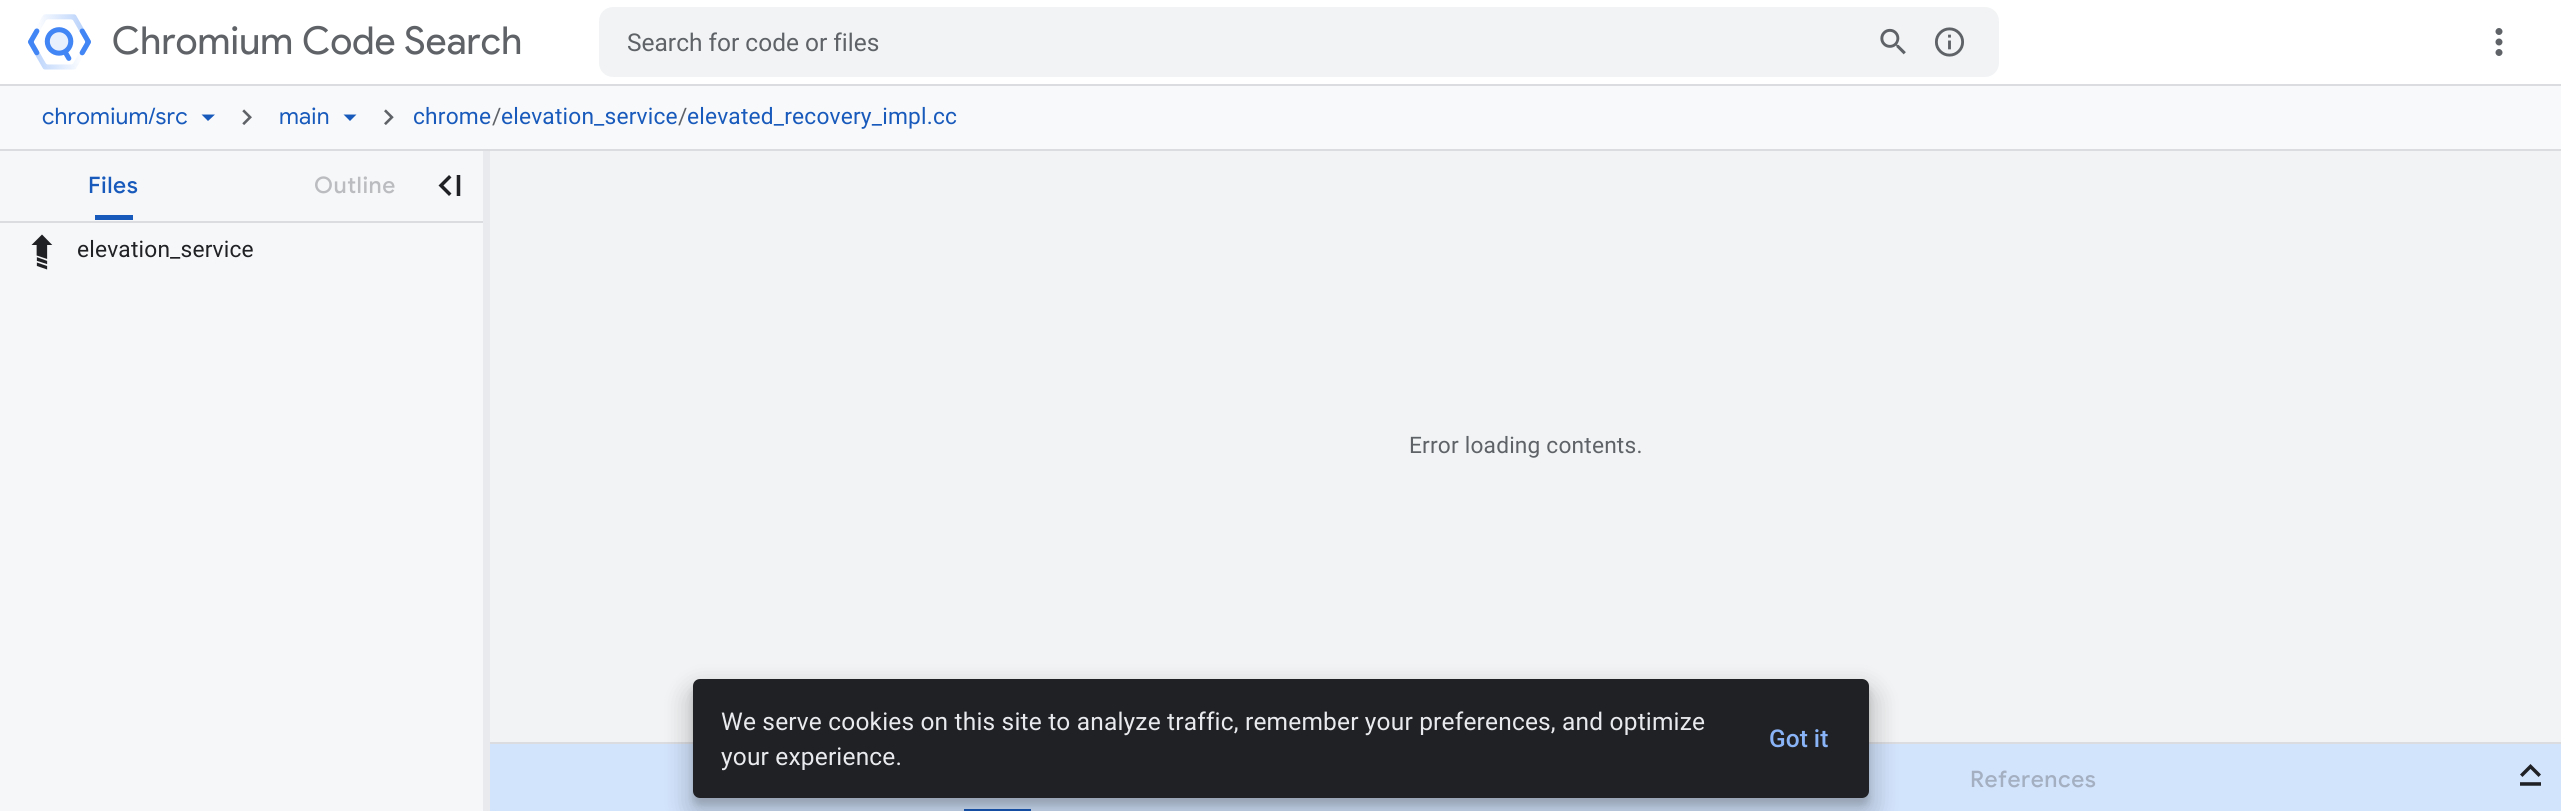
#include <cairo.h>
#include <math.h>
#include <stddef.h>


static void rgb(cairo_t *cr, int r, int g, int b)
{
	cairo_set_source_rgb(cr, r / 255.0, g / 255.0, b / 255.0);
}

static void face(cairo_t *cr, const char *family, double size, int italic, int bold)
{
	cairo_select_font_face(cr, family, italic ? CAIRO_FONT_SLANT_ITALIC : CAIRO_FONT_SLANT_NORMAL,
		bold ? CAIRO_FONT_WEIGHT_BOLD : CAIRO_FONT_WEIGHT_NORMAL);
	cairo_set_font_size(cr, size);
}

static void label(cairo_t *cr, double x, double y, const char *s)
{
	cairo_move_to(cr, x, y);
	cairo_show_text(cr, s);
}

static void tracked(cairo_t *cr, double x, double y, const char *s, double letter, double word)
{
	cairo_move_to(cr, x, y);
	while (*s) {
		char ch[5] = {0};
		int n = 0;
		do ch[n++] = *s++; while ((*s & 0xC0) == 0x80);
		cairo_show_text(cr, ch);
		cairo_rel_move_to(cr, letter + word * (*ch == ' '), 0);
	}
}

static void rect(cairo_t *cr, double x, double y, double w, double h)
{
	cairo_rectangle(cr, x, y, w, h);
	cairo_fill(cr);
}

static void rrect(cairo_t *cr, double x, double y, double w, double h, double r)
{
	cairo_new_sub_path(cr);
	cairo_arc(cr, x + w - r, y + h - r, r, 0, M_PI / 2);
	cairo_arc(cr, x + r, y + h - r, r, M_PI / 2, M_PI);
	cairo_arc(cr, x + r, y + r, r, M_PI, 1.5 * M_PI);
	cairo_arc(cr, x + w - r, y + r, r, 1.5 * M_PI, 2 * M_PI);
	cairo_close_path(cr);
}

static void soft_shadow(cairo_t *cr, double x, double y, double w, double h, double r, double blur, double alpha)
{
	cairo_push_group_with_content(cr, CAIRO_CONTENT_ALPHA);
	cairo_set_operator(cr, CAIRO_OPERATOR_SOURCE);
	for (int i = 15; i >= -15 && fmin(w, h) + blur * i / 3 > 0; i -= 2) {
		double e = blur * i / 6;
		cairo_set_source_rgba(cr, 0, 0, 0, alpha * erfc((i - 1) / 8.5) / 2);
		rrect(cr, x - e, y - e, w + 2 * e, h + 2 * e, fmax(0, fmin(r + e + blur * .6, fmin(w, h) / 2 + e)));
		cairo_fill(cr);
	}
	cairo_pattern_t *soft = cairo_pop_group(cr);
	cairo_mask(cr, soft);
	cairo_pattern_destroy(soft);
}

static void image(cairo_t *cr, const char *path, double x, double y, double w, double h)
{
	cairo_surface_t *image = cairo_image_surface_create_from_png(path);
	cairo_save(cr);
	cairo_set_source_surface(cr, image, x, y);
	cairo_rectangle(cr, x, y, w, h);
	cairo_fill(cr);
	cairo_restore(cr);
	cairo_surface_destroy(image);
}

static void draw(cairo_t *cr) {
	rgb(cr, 255, 255, 255);
	cairo_paint(cr);
	rgb(cr, 218, 220, 224);
	rect(cr, 0, 84, 2561, 2);
	image(cr, "image0.png", 28, 14, 63, 56);
	face(cr, "Product Sans", 38.5, 0, 0);
	rgb(cr, 95, 99, 104);
	tracked(cr, 112, 54, "Chromium Code Search", 0.25, 0);
	rgb(cr, 241, 243, 244);
	rrect(cr, 599, 7, 1400, 70, 14);
	cairo_fill(cr);
	face(cr, "Roboto", 24.5, 0, 0);
	rgb(cr, 95, 99, 104);
	label(cr, 627, 51, "Search for code or files");
	image(cr, "image1.png", 1880, 28, 26, 27);
	image(cr, "image2.png", 1935, 27, 29, 30);
	image(cr, "image3.png", 2495, 28, 8, 28);
	rgb(cr, 218, 220, 224);
	rect(cr, 0, 149, 2561, 2);
	rgb(cr, 248, 249, 250);
	rect(cr, 0, 86, 2561, 63);
	face(cr, "Google Sans", 22.75, 0, 0);
	rgb(cr, 24, 90, 188);
	tracked(cr, 42, 124, "chromium/src", 0.18, 0);
	cairo_new_path(cr);
	cairo_move_to(cr, 201.5, 114.5);
	cairo_line_to(cr, 208, 121);
	cairo_line_to(cr, 215, 114.5);
	cairo_close_path(cr);
	cairo_fill(cr);
	image(cr, "image4.png", 242, 109, 10, 16);
	tracked(cr, 279, 124, "main", 0.18, 0);
	cairo_new_path(cr);
	cairo_move_to(cr, 343.5, 114.5);
	cairo_line_to(cr, 350, 121);
	cairo_line_to(cr, 356.5, 114.5);
	cairo_close_path(cr);
	cairo_fill(cr);
	image(cr, "image5.png", 384, 109, 10, 16);
	face(cr, "Roboto", 22.75, 0, 0);
	tracked(cr, 413, 124, "chrome", 0.18, 0);
	rgb(cr, 95, 99, 104);
	tracked(cr, 492, 124, "/", 0.18, 0);
	rgb(cr, 24, 90, 188);
	tracked(cr, 501, 124, "elevation_service", 0.18, 0);
	rgb(cr, 95, 99, 104);
	tracked(cr, 678, 124, "/", 0.18, 0);
	rgb(cr, 24, 90, 188);
	tracked(cr, 687, 124, "elevated_recovery_impl.cc", 0.18, 0);
	rgb(cr, 246, 247, 249);
	rect(cr, 0, 151, 483, 660);
	rgb(cr, 218, 220, 224);
	rect(cr, 0, 221, 483, 2);
	face(cr, "Google Sans Medium", 22.75, 0, 0);
	rgb(cr, 24, 90, 188);
	tracked(cr, 88, 193, "Files", 0.5, 0);
	rect(cr, 95, 215, 38, 5);
	rgb(cr, 186, 188, 191);
	tracked(cr, 314, 193, "Outline", 0.5, 0);
	image(cr, "image6.png", 31, 234, 22, 36);
	face(cr, "Roboto", 22.75, 0, 0);
	rgb(cr, 32, 33, 36);
	tracked(cr, 77, 257, "elevation_service", 0.18, 0);
	image(cr, "image7.png", 438, 175, 23, 21);
	rgb(cr, 232, 234, 237);
	rect(cr, 483, 151, 7, 660);
	rgb(cr, 241, 243, 244);
	rect(cr, 490, 151, 2071, 591);
	rgb(cr, 95, 99, 104);
	tracked(cr, 1409, 453, "Error loading contents.", 0.18, 0);
	rgb(cr, 218, 220, 224);
	rect(cr, 490, 742, 2071, 2);
	rgb(cr, 210, 227, 252);
	rect(cr, 490, 744, 2071, 67);
	face(cr, "Google Sans Medium", 22.75, 0, 0);
	rgb(cr, 164, 176, 193);
	tracked(cr, 1970, 787, "References", 0.5, 0);
	rgb(cr, 24, 90, 188);
	rect(cr, 964, 809, 67, 2);
	image(cr, "image8.png", 2520, 764, 21, 22);
	rgb(cr, 0, 0, 0);
	soft_shadow(cr, 683, 683, 1197, 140, 18, 10.5, 0.15);
	soft_shadow(cr, 693, 686, 1176, 119, 7, 3.5, 0.15);
	rgb(cr, 32, 33, 36);
	rrect(cr, 693, 679, 1176, 119, 7);
	cairo_fill(cr);
	face(cr, "Roboto", 24.5, 0, 0);
	rgb(cr, 232, 234, 237);
	tracked(cr, 721, 730, "We serve cookies on this site to analyze traffic, remember your preferences, and optimize", 0.18, 0);
	tracked(cr, 721, 765, "your experience.", 0.18, 0);
	face(cr, "Roboto Medium", 24.5, 0, 0);
	rgb(cr, 138, 180, 248);
	label(cr, 1769, 747, "Got it");
}

int main(void) {
	cairo_surface_t *surface = cairo_image_surface_create(CAIRO_FORMAT_RGB24, 2561, 811);
	cairo_t *cr = cairo_create(surface);
	cairo_font_options_t *options = cairo_font_options_create();
	cairo_font_options_set_hint_metrics(options, CAIRO_HINT_METRICS_OFF);
	cairo_font_options_set_hint_style(options, CAIRO_HINT_STYLE_NONE);
	cairo_set_font_options(cr, options);
	cairo_set_miter_limit(cr, 4);
	draw(cr);
	cairo_surface_write_to_png(surface, "render.png");
	cairo_font_options_destroy(options);
	cairo_destroy(cr);
	cairo_surface_destroy(surface);
	return 0;
}
